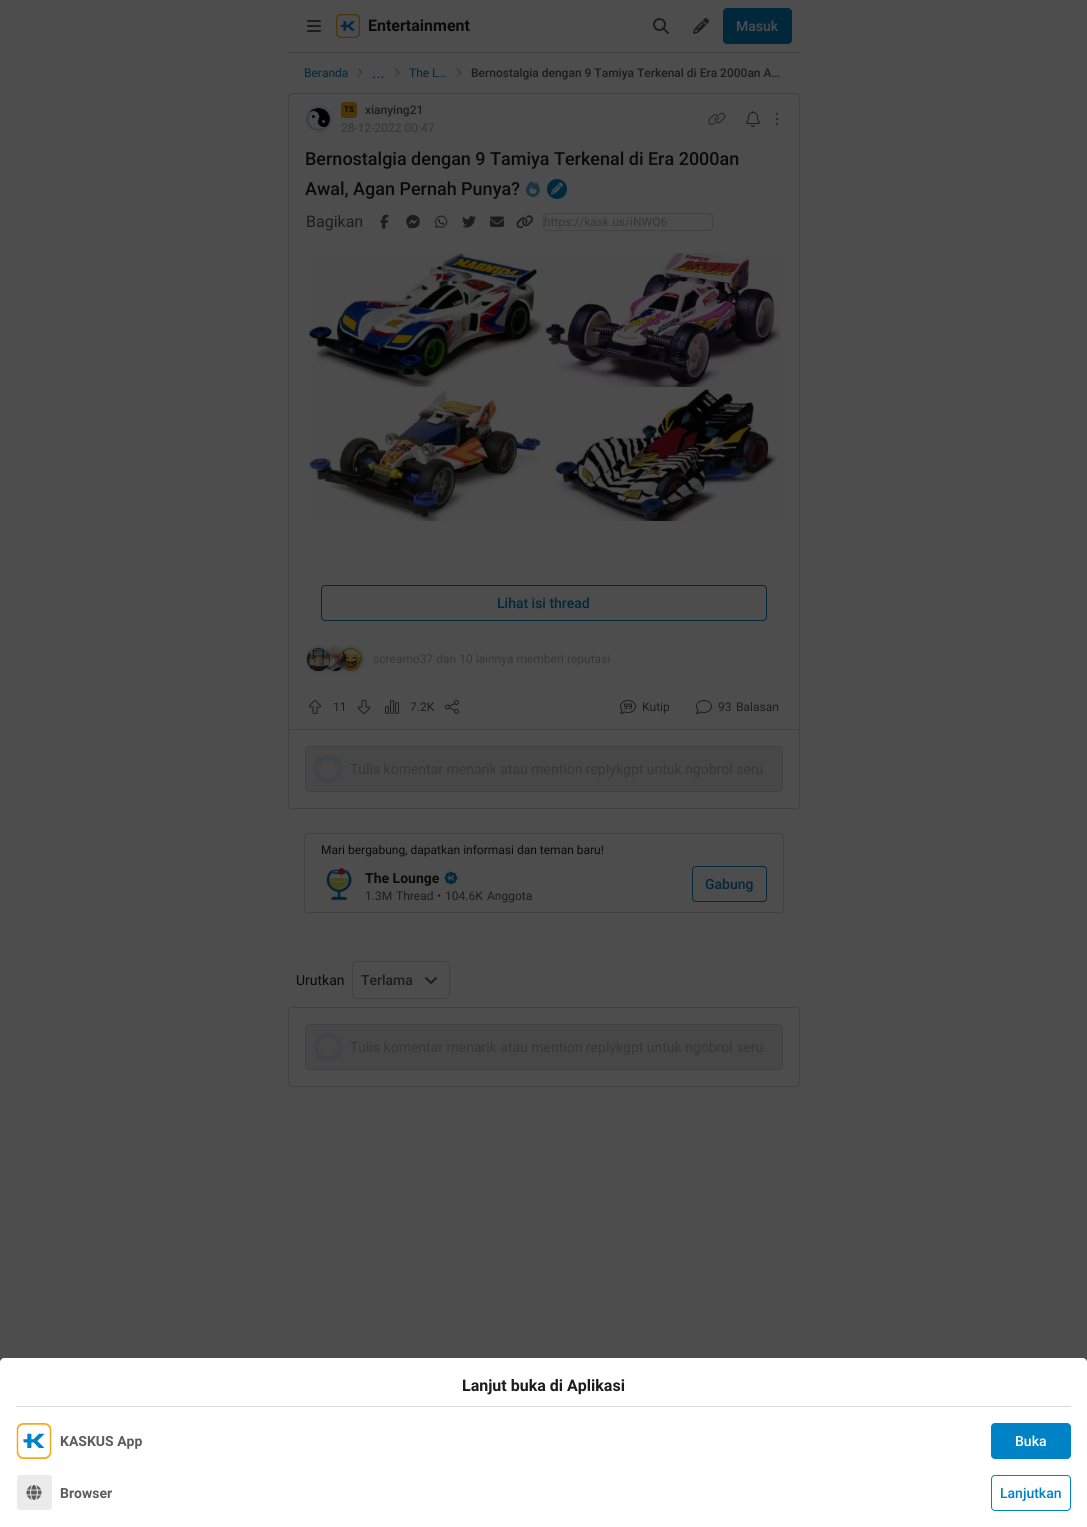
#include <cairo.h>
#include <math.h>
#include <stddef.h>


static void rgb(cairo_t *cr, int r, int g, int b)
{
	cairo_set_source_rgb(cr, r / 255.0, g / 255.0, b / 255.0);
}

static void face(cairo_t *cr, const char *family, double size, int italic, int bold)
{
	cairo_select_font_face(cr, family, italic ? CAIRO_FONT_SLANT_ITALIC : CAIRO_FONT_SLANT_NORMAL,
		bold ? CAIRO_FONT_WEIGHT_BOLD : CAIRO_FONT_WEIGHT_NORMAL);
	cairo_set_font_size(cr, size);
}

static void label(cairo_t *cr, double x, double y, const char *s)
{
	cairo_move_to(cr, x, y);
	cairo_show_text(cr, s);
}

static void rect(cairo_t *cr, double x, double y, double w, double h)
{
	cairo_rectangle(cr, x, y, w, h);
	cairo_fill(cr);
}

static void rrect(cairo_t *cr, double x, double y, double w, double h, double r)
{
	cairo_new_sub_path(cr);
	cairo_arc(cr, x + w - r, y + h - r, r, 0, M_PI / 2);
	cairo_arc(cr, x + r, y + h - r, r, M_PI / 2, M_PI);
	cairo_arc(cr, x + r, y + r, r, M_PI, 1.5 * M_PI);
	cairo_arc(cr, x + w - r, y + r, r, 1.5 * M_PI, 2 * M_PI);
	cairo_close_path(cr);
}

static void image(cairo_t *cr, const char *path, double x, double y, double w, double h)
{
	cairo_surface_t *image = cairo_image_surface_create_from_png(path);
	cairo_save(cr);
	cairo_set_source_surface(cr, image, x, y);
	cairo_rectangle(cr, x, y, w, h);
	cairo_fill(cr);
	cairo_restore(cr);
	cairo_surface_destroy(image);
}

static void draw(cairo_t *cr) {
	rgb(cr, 77, 77, 77);
	cairo_paint(cr);
	rgb(cr, 65, 65, 65);
	rect(cr, 288, 52, 512, 1);
	image(cr, "image0.png", 307, 20, 14, 12);
	image(cr, "image1.png", 336, 14, 24, 24);
	face(cr, "Roboto", 16, 0, 1);
	rgb(cr, 10, 10, 10);
	label(cr, 368, 31, "Entertainment");
	image(cr, "image2.png", 653, 18, 16, 16);
	image(cr, "image3.png", 693, 18, 16, 16);
	rgb(cr, 0, 39, 59);
	rrect(cr, 723.5, 8.5, 68, 35, 3.5);
	cairo_fill_preserve(cr);
	cairo_set_line_width(cr, 1);
	cairo_stroke(cr);
	face(cr, "Roboto Medium", 14, 0, 0);
	rgb(cr, 77, 77, 77);
	label(cr, 736, 31, "Masuk");
	face(cr, "Roboto", 12, 0, 0);
	rgb(cr, 0, 39, 59);
	label(cr, 304, 77, "Beranda");
	image(cr, "image4.png", 357, 68, 6, 9);
	image(cr, "image4.png", 394, 68, 6, 9);
	face(cr, "Roboto", 16, 0, 0);
	label(cr, 372, 78, "...");
	face(cr, "Roboto", 12, 0, 0);
	label(cr, 409, 77, "The L…");
	image(cr, "image4.png", 456, 68, 6, 9);
	face(cr, "Roboto Medium", 12, 0, 0);
	rgb(cr, 28, 28, 28);
	label(cr, 471, 77, "Bernostalgia dengan 9 Tamiya Terkenal di Era 2000an A…");
	rrect(cr, 288.5, 93.5, 511, 715, 3.5);
	rgb(cr, 65, 65, 65);
	cairo_stroke(cr);
	image(cr, "image6.png", 307, 108, 23, 22);
	image(cr, "image5.png", 305, 105, 28, 28);
	rgb(cr, 75, 50, 8);
	rrect(cr, 341, 102, 16, 16, 3);
	cairo_fill(cr);
	face(cr, "Roboto", 8, 0, 1);
	rgb(cr, 10, 10, 10);
	label(cr, 344, 112, "TS");
	face(cr, "Roboto Medium", 12, 0, 0);
	rgb(cr, 28, 28, 28);
	label(cr, 365, 114, "xianying21");
	face(cr, "Roboto", 12, 0, 0);
	rgb(cr, 54, 54, 54);
	label(cr, 341, 132, "28-12-2022 00:47");
	image(cr, "image7.png", 708, 112, 18, 13);
	image(cr, "image8.png", 746, 111, 14, 16);
	image(cr, "image9.png", 776, 113, 2, 12);
	face(cr, "Roboto Medium", 18, 0, 0);
	rgb(cr, 10, 10, 10);
	label(cr, 305, 165, "Bernostalgia dengan 9 Tamiya Terkenal di Era 2000an");
	label(cr, 305, 195, "Awal, Agan Pernah Punya?");
	image(cr, "image10.png", 526, 181, 14, 16);
	rgb(cr, 0, 39, 59);
	cairo_arc(cr, 557, 189, 10, 0, 2 * M_PI);
	cairo_fill(cr);
	image(cr, "image11.png", 551, 182, 12, 13);
	face(cr, "Roboto", 16, 0, 0);
	rgb(cr, 28, 28, 28);
	label(cr, 306, 227, "Bagikan");
	image(cr, "image12.png", 380, 214, 9, 15);
	image(cr, "image13.png", 406, 215, 14, 14);
	image(cr, "image14.png", 435, 215, 13, 13);
	image(cr, "image15.png", 462, 216, 14, 12);
	image(cr, "image16.png", 490, 216, 14, 11);
	image(cr, "image17.png", 516, 215, 17, 14);
	rrect(cr, 543.5, 213.5, 169, 17, 3.5);
	rgb(cr, 65, 65, 65);
	cairo_stroke(cr);
	face(cr, "Roboto", 12, 0, 0);
	rgb(cr, 54, 54, 54);
	label(cr, 544, 226, "https://kask.us/iNWQ6");
	image(cr, "image18.png", 308, 253, 474, 268);
	rrect(cr, 321.5, 585.5, 445, 35, 3.5);
	rgb(cr, 0, 39, 59);
	cairo_stroke(cr);
	face(cr, "Roboto Medium", 14, 0, 0);
	label(cr, 497, 608, "Lihat isi thread");
	image(cr, "image24.png", 342, 648, 20, 23);
	image(cr, "image23.png", 340, 645, 25, 28);
	image(cr, "image22.png", 326, 648, 20, 23);
	image(cr, "image21.png", 324, 645, 25, 28);
	image(cr, "image20.png", 307, 648, 23, 23);
	image(cr, "image19.png", 305, 645, 28, 28);
	face(cr, "Roboto", 12, 0, 0);
	rgb(cr, 54, 54, 54);
	label(cr, 373, 663, "screamo37 dan 10 lainnya memberi reputasi");
	image(cr, "image25.png", 309, 700, 12, 14);
	rgb(cr, 28, 28, 28);
	label(cr, 333, 711, "11");
	image(cr, "image26.png", 358, 700, 12, 14);
	image(cr, "image27.png", 385, 700, 14, 14);
	label(cr, 410, 711, "7.2K");
	image(cr, "image28.png", 445, 700, 14, 14);
	image(cr, "image29.png", 620, 700, 16, 14);
	label(cr, 642, 711, "Kutip");
	image(cr, "image30.png", 696, 700, 16, 14);
	label(cr, 718, 711, "93");
	label(cr, 736, 711, "Balasan");
	rgb(cr, 65, 65, 65);
	rect(cr, 289, 729, 510, 1);
	rgb(cr, 71, 71, 71);
	rrect(cr, 305.5, 746.5, 477, 45, 3.5);
	cairo_fill_preserve(cr);
	rgb(cr, 65, 65, 65);
	cairo_stroke(cr);
	image(cr, "image31.png", 314, 755, 28, 28);
	face(cr, "Roboto", 14, 0, 0);
	rgb(cr, 54, 54, 54);
	label(cr, 350, 774, "Tulis komentar menarik atau mention replykgpt untuk ngobrol seru");
	rrect(cr, 304.5, 833.5, 479, 79, 3.5);
	rgb(cr, 65, 65, 65);
	cairo_stroke(cr);
	face(cr, "Roboto", 12, 0, 0);
	rgb(cr, 10, 10, 10);
	label(cr, 321, 854, "Mari bergabung, dapatkan informasi dan teman baru!");
	image(cr, "image32.png", 326, 867, 26, 33);
	face(cr, "Roboto", 14, 0, 1);
	label(cr, 365, 883, "The Lounge");
	image(cr, "image33.png", 444, 871, 14, 14);
	face(cr, "Roboto", 12, 0, 0);
	rgb(cr, 28, 28, 28);
	label(cr, 365, 900, "1.3M");
	label(cr, 396, 900, "Thread");
	label(cr, 437, 900, "•");
	label(cr, 445, 900, "104.6K");
	label(cr, 487, 900, "Anggota");
	rrect(cr, 692.5, 866.5, 74, 35, 3.5);
	rgb(cr, 0, 39, 59);
	cairo_stroke(cr);
	face(cr, "Roboto Medium", 14, 0, 0);
	label(cr, 705, 889, "Gabung");
	face(cr, "Roboto", 14, 0, 0);
	rgb(cr, 10, 10, 10);
	label(cr, 296, 985, "Urutkan");
	rrect(cr, 352.5, 961.5, 97, 37, 3.5);
	rgb(cr, 65, 65, 65);
	cairo_stroke(cr);
	face(cr, "Roboto Medium", 14, 0, 0);
	rgb(cr, 28, 28, 28);
	label(cr, 361, 985, "Terlama");
	image(cr, "image34.png", 425, 977, 12, 7);
	rrect(cr, 288.5, 1007.5, 511, 79, 3.5);
	rgb(cr, 65, 65, 65);
	cairo_stroke(cr);
	rgb(cr, 71, 71, 71);
	rrect(cr, 305.5, 1024.5, 477, 45, 3.5);
	cairo_fill_preserve(cr);
	rgb(cr, 65, 65, 65);
	cairo_stroke(cr);
	image(cr, "image31.png", 314, 1033, 28, 28);
	face(cr, "Roboto", 14, 0, 0);
	rgb(cr, 54, 54, 54);
	label(cr, 350, 1052, "Tulis komentar menarik atau mention replykgpt untuk ngobrol seru");
	rgb(cr, 255, 255, 255);
	cairo_new_path(cr);
	cairo_move_to(cr, 4, 1358);
	cairo_line_to(cr, 1083, 1358);
	cairo_curve_to(cr, 1085, 1358, 1087, 1360, 1087, 1362);
	cairo_line_to(cr, 1087, 1527);
	cairo_line_to(cr, 0, 1527);
	cairo_line_to(cr, 0, 1362);
	cairo_curve_to(cr, 0, 1360, 2, 1358, 4, 1358);
	cairo_close_path(cr);
	cairo_fill(cr);
	face(cr, "Roboto", 16, 0, 1);
	rgb(cr, 28, 28, 28);
	label(cr, 462, 1391, "Lanjut buka di Aplikasi");
	rgb(cr, 217, 217, 217);
	rect(cr, 16, 1406, 1055, 1);
	image(cr, "image35.png", 16, 1423, 36, 36);
	face(cr, "Roboto", 14, 0, 1);
	rgb(cr, 92, 92, 92);
	label(cr, 60, 1446, "KASKUS App");
	rgb(cr, 0, 130, 198);
	rrect(cr, 991.5, 1423.5, 79, 35, 3.5);
	cairo_fill_preserve(cr);
	cairo_stroke(cr);
	face(cr, "Roboto Medium", 14, 0, 0);
	rgb(cr, 255, 255, 255);
	label(cr, 1015, 1446, "Buka");
	image(cr, "image36.png", 17, 1475, 35, 35);
	face(cr, "Roboto", 14, 0, 1);
	rgb(cr, 92, 92, 92);
	label(cr, 60, 1498, "Browser");
	rrect(cr, 991.5, 1475.5, 79, 35, 3.5);
	rgb(cr, 0, 130, 198);
	cairo_stroke(cr);
	face(cr, "Roboto Medium", 14, 0, 0);
	label(cr, 1000, 1498, "Lanjutkan");
}

int main(void) {
	cairo_surface_t *surface = cairo_image_surface_create(CAIRO_FORMAT_RGB24, 1087, 1527);
	cairo_t *cr = cairo_create(surface);
	cairo_font_options_t *options = cairo_font_options_create();
	cairo_font_options_set_hint_metrics(options, CAIRO_HINT_METRICS_OFF);
	cairo_font_options_set_hint_style(options, CAIRO_HINT_STYLE_NONE);
	cairo_set_font_options(cr, options);
	cairo_set_miter_limit(cr, 4);
	draw(cr);
	cairo_surface_write_to_png(surface, "render.png");
	cairo_font_options_destroy(options);
	cairo_destroy(cr);
	cairo_surface_destroy(surface);
	return 0;
}
